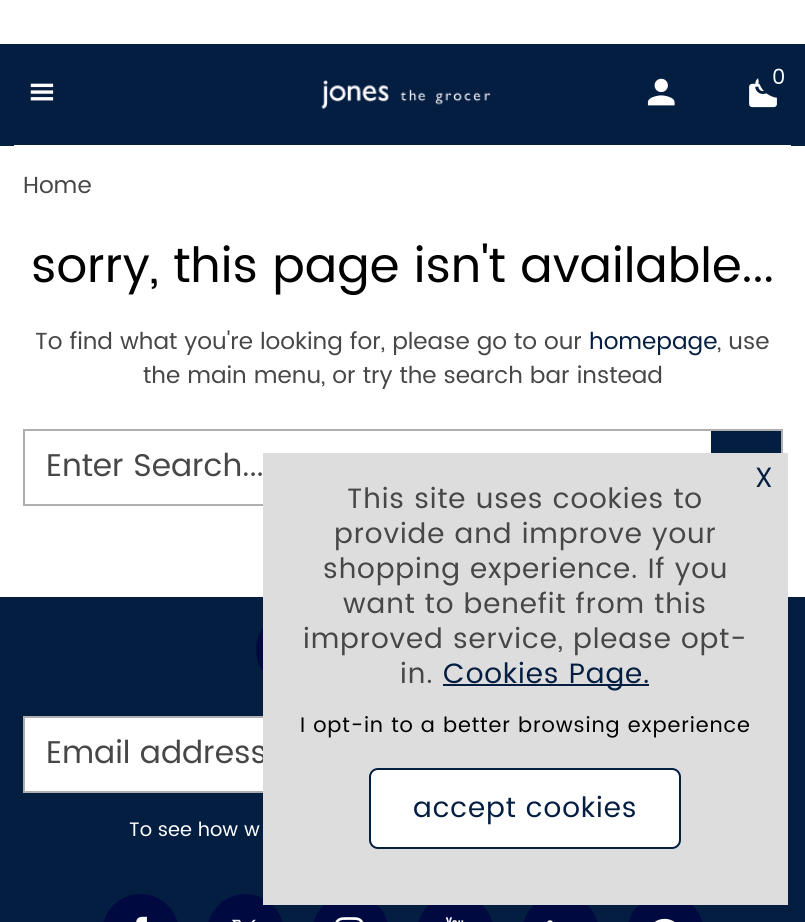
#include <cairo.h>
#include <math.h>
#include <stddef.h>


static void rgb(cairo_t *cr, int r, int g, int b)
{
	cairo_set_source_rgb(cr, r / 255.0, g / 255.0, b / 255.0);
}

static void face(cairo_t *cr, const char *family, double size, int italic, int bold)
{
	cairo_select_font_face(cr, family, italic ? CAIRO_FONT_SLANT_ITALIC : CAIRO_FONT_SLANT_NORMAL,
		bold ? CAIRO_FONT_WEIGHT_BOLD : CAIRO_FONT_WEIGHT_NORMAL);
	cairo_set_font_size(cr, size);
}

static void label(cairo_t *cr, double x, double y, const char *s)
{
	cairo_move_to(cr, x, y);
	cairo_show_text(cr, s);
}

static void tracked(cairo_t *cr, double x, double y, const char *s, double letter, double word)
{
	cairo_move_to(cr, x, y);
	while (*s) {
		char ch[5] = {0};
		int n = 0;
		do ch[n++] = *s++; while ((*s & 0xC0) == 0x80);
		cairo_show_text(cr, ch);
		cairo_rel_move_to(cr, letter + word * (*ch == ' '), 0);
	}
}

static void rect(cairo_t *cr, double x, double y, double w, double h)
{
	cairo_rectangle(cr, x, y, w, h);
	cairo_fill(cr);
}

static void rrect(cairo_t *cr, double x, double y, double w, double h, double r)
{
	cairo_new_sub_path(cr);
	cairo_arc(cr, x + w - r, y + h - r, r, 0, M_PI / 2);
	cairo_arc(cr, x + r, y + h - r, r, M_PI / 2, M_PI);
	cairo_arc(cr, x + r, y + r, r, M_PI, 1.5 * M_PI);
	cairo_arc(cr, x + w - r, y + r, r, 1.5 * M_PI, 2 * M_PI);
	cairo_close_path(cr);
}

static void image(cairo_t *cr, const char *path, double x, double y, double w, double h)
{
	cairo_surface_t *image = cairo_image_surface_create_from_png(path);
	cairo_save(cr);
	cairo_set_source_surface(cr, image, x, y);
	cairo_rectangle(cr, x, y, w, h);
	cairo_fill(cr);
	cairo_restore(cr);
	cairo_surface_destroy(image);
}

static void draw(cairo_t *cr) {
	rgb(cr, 255, 255, 255);
	cairo_paint(cr);
	rgb(cr, 4, 30, 66);
	rect(cr, 0, 44, 805, 102);
	face(cr, "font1", 34, 0, 0);
	rgb(cr, 255, 255, 255);
	label(cr, 25, 107, "<");
	image(cr, "image0.png", 321, 80, 170, 30);
	label(cr, 646, 107, "/");
	label(cr, 746, 107, ",");
	rgb(cr, 4, 30, 66);
	cairo_new_path(cr);
	cairo_arc(cr, 780, 76, 20, 0, 2 * M_PI);
	cairo_fill_preserve(cr);
	cairo_set_line_width(cr, 4);
	cairo_stroke(cr);
	face(cr, "Poppins", 21, 0, 0);
	rgb(cr, 255, 255, 255);
	label(cr, 772, 84, "0");
	rect(cr, 14, 145, 777, 1);
	face(cr, "Poppins", 23.3, 0, 0);
	rgb(cr, 71, 71, 71);
	label(cr, 23, 193, "Home");
	face(cr, "Poppins", 48.4, 0, 0);
	rgb(cr, 0, 0, 0);
	label(cr, 31, 282, "sorry, this page isn't available...");
	face(cr, "Poppins", 23.3, 0, 0);
	rgb(cr, 71, 71, 71);
	label(cr, 35, 349, "To find what you're looking for, please go to our");
	rgb(cr, 4, 30, 66);
	label(cr, 589, 349, "homepage");
	rgb(cr, 71, 71, 71);
	label(cr, 717, 349, ", use");
	label(cr, 143, 383, "the main menu, or try the search bar instead");
	rgb(cr, 4, 30, 66);
	rect(cr, 711, 431, 70, 22);
	rgb(cr, 175, 175, 175);
	rect(cr, 23, 429, 759, 2);
	rect(cr, 781, 429, 2, 24);
	rect(cr, 23, 504, 240, 2);
	rect(cr, 23, 429, 2, 77);
	face(cr, "Poppins", 31.5, 0, 0);
	rgb(cr, 71, 71, 71);
	label(cr, 46, 476, "Enter Search...");
	rgb(cr, 4, 30, 66);
	rect(cr, 0, 597, 805, 325);
	rgb(cr, 0, 10, 64);
	cairo_new_path(cr);
	cairo_arc(cr, 294.5, 649.5, 38.5, 0, 2 * M_PI);
	cairo_fill(cr);
	rgb(cr, 255, 255, 255);
	rect(cr, 25, 718, 238, 73);
	rgb(cr, 175, 175, 175);
	rect(cr, 23, 716, 240, 2);
	rect(cr, 23, 791, 240, 2);
	rect(cr, 23, 716, 2, 77);
	rgb(cr, 71, 71, 71);
	label(cr, 46, 763, "Email address");
	face(cr, "Poppins", 19.5, 0, 0);
	rgb(cr, 255, 255, 255);
	label(cr, 129, 836, "To see how w");
	rgb(cr, 0, 10, 64);
	rrect(cr, 102, 894, 77, 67, 38.5);
	cairo_fill(cr);
	image(cr, "image1.png", 136, 916, 11, 6);
	rrect(cr, 207, 894, 77, 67, 38.5);
	cairo_fill(cr);
	image(cr, "image2.png", 232, 919, 24, 3);
	rrect(cr, 312, 894, 77, 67, 38.5);
	cairo_fill(cr);
	image(cr, "image3.png", 335, 917, 29, 5);
	rrect(cr, 417, 894, 77, 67, 38.5);
	cairo_fill(cr);
	image(cr, "image4.png", 445, 917, 19, 5);
	rrect(cr, 522, 894, 77, 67, 38.5);
	cairo_fill(cr);
	image(cr, "image5.png", 547, 920, 6, 2);
	rrect(cr, 627, 894, 77, 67, 38.5);
	cairo_fill(cr);
	image(cr, "image6.png", 654, 918, 21, 4);
	rgb(cr, 221, 221, 221);
	rect(cr, 263, 453, 525, 452);
	face(cr, "Poppins", 28, 0, 0);
	rgb(cr, 4, 30, 66);
	tracked(cr, 755, 487, "X", 0.9, 0);
	rgb(cr, 71, 71, 71);
	tracked(cr, 347, 508, "This site uses cookies to", 0.9, 0);
	tracked(cr, 334, 543, "provide and improve your", 0.9, 0);
	tracked(cr, 323, 578, "shopping experience. If you", 0.9, 0);
	tracked(cr, 343, 613, "want to benefit from this", 0.9, 0);
	tracked(cr, 303, 648, "improved service, please opt-", 0.9, 0);
	tracked(cr, 400, 683, "in.", 0.9, 0);
	rgb(cr, 4, 30, 66);
	rect(cr, 443, 684, 206, 2);
	tracked(cr, 443, 683, "Cookies Page.", 0.9, 0);
	face(cr, "Poppins", 21, 0, 0);
	rgb(cr, 0, 0, 0);
	tracked(cr, 300, 732, "I opt-in to a better browsing experience", 0.9, 0);
	rgb(cr, 255, 255, 255);
	rrect(cr, 370, 769, 310, 79, 8);
	cairo_fill_preserve(cr);
	rgb(cr, 4, 30, 66);
	cairo_set_line_width(cr, 2);
	cairo_stroke(cr);
	face(cr, "Poppins", 28, 0, 0);
	tracked(cr, 413, 817, "accept cookies", 0.9, 0);
}

int main(void) {
	cairo_surface_t *surface = cairo_image_surface_create(CAIRO_FORMAT_RGB24, 805, 922);
	cairo_t *cr = cairo_create(surface);
	cairo_font_options_t *options = cairo_font_options_create();
	cairo_font_options_set_hint_metrics(options, CAIRO_HINT_METRICS_OFF);
	cairo_font_options_set_hint_style(options, CAIRO_HINT_STYLE_NONE);
	cairo_set_font_options(cr, options);
	cairo_set_miter_limit(cr, 4);
	draw(cr);
	cairo_surface_write_to_png(surface, "render.png");
	cairo_font_options_destroy(options);
	cairo_destroy(cr);
	cairo_surface_destroy(surface);
	return 0;
}
